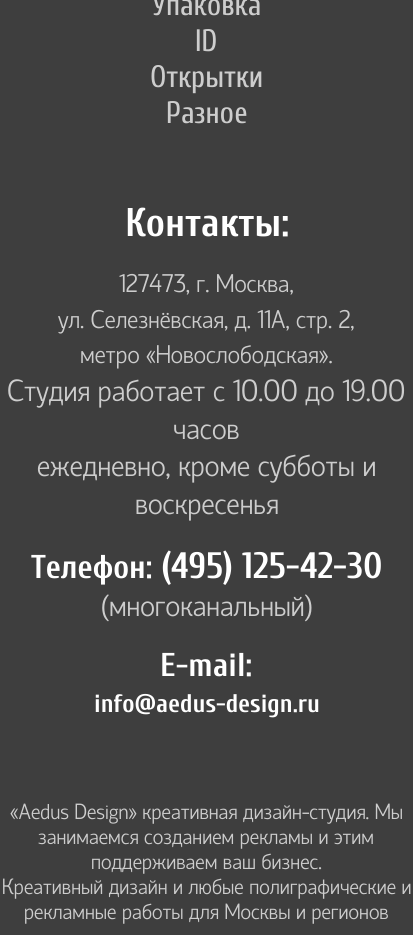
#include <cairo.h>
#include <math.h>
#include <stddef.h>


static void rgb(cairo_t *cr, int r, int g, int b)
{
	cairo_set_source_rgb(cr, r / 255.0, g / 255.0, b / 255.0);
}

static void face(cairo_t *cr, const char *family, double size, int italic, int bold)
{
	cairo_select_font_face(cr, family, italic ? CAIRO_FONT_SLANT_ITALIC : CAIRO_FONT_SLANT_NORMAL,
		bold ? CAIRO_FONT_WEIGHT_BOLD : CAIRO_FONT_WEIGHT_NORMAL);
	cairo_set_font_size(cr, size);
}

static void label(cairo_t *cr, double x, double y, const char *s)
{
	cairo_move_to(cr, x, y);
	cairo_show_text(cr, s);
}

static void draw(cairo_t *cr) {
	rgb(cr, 62, 62, 62);
	cairo_paint(cr);
	face(cr, "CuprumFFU", 31, 0, 0);
	rgb(cr, 205, 205, 205);
	label(cr, 152, 15, "Упаковка");
	label(cr, 195, 51, "ID");
	label(cr, 150, 87, "Открытки");
	label(cr, 166, 123, "Разное");
	face(cr, "Cuprum", 40, 0, 1);
	rgb(cr, 255, 255, 255);
	label(cr, 125, 236, "Контакты:");
	face(cr, "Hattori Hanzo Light", 25.5, 0, 0);
	rgb(cr, 205, 205, 205);
	label(cr, 119, 292, "127473, г. Москва,");
	label(cr, 58, 328, "ул. Селезнёвская, д. 11А, стр. 2,");
	label(cr, 80, 363, "метро «Новослободская».");
	face(cr, "Hattori Hanzo Light", 30.6, 0, 0);
	label(cr, 7, 401, "Студия работает с 10.00 до 19.00");
	label(cr, 173, 439, "часов");
	label(cr, 37, 476, "ежедневно, кроме субботы и");
	label(cr, 135, 514, "воскресенья");
	face(cr, "Cuprum", 33, 0, 1);
	rgb(cr, 255, 255, 255);
	label(cr, 31, 578, "Телефон:");
	face(cr, "Cuprum", 36.75, 0, 1);
	label(cr, 161, 578, "(495) 125-42-30");
	face(cr, "Hattori Hanzo Light", 30.6, 0, 0);
	rgb(cr, 205, 205, 205);
	label(cr, 101, 616, "(многоканальный)");
	face(cr, "Cuprum", 33, 0, 1);
	rgb(cr, 255, 255, 255);
	label(cr, 160, 676, "E-mail:");
	face(cr, "Cuprum", 25.5, 0, 1);
	label(cr, 94, 712, "info@aedus-design.ru");
	face(cr, "Hattori Hanzo Light", 22, 0, 0);
	rgb(cr, 205, 205, 205);
	label(cr, 10, 819, "«Aedus Design» креативная дизайн-студия. Мы");
	label(cr, 38, 844, "занимаемся созданием рекламы и этим");
	label(cr, 91, 869, "поддерживаем ваш бизнес.");
	label(cr, 2, 894, "Креативный дизайн и любые полиграфические и");
	label(cr, 24, 919, "рекламные работы для Москвы и регионов");
}

int main(void) {
	cairo_surface_t *surface = cairo_image_surface_create(CAIRO_FORMAT_RGB24, 413, 935);
	cairo_t *cr = cairo_create(surface);
	cairo_font_options_t *options = cairo_font_options_create();
	cairo_font_options_set_hint_metrics(options, CAIRO_HINT_METRICS_OFF);
	cairo_font_options_set_hint_style(options, CAIRO_HINT_STYLE_NONE);
	cairo_set_font_options(cr, options);
	cairo_set_miter_limit(cr, 4);
	draw(cr);
	cairo_surface_write_to_png(surface, "render.png");
	cairo_font_options_destroy(options);
	cairo_destroy(cr);
	cairo_surface_destroy(surface);
	return 0;
}
